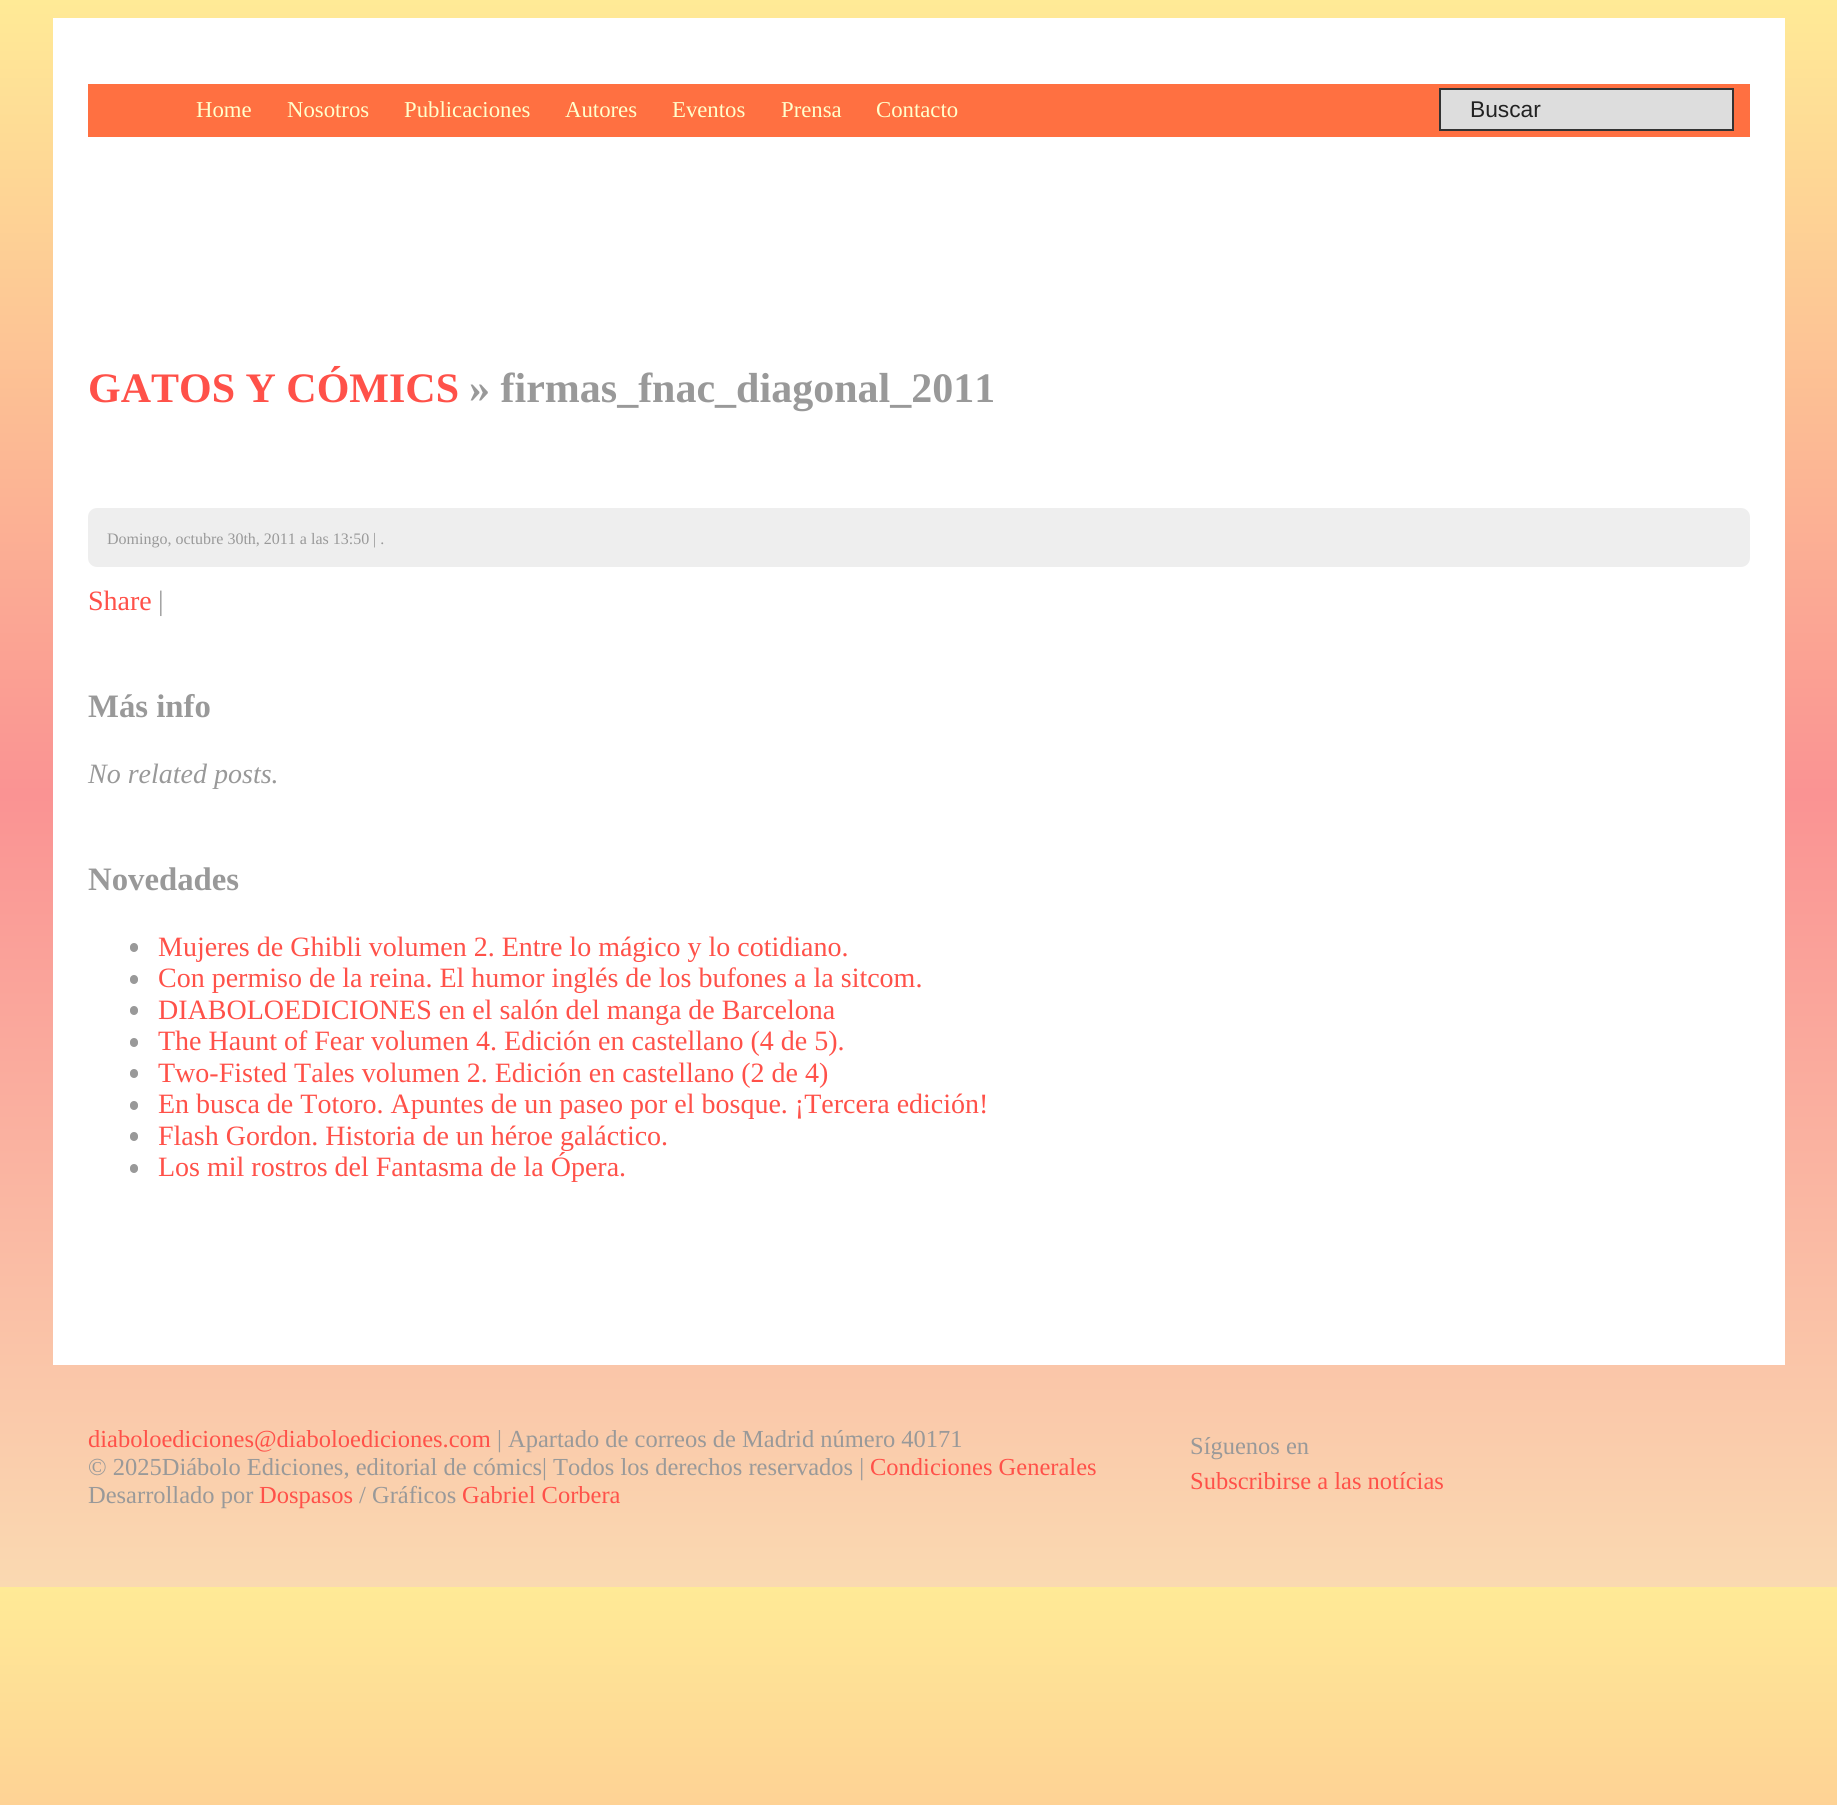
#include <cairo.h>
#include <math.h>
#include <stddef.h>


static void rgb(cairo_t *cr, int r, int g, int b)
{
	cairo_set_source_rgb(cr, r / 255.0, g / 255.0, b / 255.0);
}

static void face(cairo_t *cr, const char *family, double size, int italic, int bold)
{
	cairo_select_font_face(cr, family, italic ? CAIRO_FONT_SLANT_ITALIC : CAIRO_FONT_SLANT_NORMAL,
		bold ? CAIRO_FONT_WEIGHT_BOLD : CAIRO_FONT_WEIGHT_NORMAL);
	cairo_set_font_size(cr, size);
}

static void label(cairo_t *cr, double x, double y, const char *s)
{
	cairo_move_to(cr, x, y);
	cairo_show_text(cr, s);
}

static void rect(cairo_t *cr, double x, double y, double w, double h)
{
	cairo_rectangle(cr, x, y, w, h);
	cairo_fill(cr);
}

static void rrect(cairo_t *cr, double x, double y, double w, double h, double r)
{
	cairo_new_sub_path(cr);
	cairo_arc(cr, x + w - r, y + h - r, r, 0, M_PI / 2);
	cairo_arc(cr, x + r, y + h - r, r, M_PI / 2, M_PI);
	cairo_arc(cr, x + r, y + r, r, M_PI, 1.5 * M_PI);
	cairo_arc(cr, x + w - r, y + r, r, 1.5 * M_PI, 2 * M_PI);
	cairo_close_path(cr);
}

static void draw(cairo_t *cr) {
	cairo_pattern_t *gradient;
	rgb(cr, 255, 255, 255);
	cairo_paint(cr);
	gradient = cairo_pattern_create_linear(0, 0, 0, 1587);
	cairo_pattern_add_color_stop_rgba(gradient, 0, 1, 0.918, 0.588, 1);
	cairo_pattern_add_color_stop_rgba(gradient, 0.5, 0.98, 0.576, 0.576, 1);
	cairo_pattern_add_color_stop_rgba(gradient, 1, 0.98, 0.851, 0.694, 1);
	cairo_set_source(cr, gradient);
	cairo_pattern_destroy(gradient);
	rect(cr, 0, 0, 1837, 1587);
	gradient = cairo_pattern_create_linear(0, 1587, 0, 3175);
	cairo_pattern_add_color_stop_rgba(gradient, 0, 1, 0.918, 0.588, 1);
	cairo_pattern_add_color_stop_rgba(gradient, 0.5, 0.98, 0.576, 0.576, 1);
	cairo_pattern_add_color_stop_rgba(gradient, 1, 0.98, 0.851, 0.694, 1);
	cairo_set_source(cr, gradient);
	cairo_pattern_destroy(gradient);
	rect(cr, 0, 1587, 1837, 218);
	rgb(cr, 255, 255, 255);
	rect(cr, 53, 18, 1732, 1347);
	rgb(cr, 255, 112, 65);
	rect(cr, 88, 84, 1662, 53);
	face(cr, "Liberation Serif", 22.75, 0, 0);
	rgb(cr, 255, 255, 204);
	label(cr, 196, 117, "Home");
	label(cr, 287, 117, "Nosotros");
	label(cr, 404, 117, "Publicaciones");
	label(cr, 565, 117, "Autores");
	label(cr, 672, 117, "Eventos");
	label(cr, 781, 117, "Prensa");
	label(cr, 876, 117, "Contacto");
	rgb(cr, 221, 221, 221);
	cairo_rectangle(cr, 1440, 89, 293, 41);
	cairo_fill_preserve(cr);
	rgb(cr, 51, 51, 51);
	cairo_stroke(cr);
	face(cr, "Liberation Sans", 22.75, 0, 0);
	rgb(cr, 34, 34, 34);
	label(cr, 1470, 117, "Buscar");
	face(cr, "Liberation Serif", 42, 0, 1);
	rgb(cr, 255, 81, 73);
	label(cr, 88, 402, "GATOS Y CÓMICS");
	rgb(cr, 153, 153, 153);
	label(cr, 469, 402, "» firmas_fnac_diagonal_2011");
	rgb(cr, 238, 238, 238);
	rrect(cr, 88, 508, 1662, 59, 9);
	cairo_fill(cr);
	face(cr, "Liberation Serif", 16, 0, 0);
	rgb(cr, 153, 153, 153);
	label(cr, 107, 544, "Domingo, octubre 30th, 2011 a las 13:50");
	label(cr, 373, 544, "| .");
	face(cr, "Liberation Serif", 28, 0, 0);
	rgb(cr, 255, 81, 73);
	label(cr, 88, 610, "Share");
	rgb(cr, 153, 153, 153);
	label(cr, 158, 610, "|");
	face(cr, "Liberation Serif", 32.75, 0, 1);
	label(cr, 88, 717, "Más info");
	face(cr, "Liberation Serif", 28, 1, 0);
	label(cr, 88, 783, "No related posts.");
	face(cr, "Liberation Serif", 32.75, 0, 1);
	label(cr, 88, 890, "Novedades");
	rrect(cr, 130, 943, 8, 9, 4);
	cairo_fill(cr);
	face(cr, "Liberation Serif", 28, 0, 0);
	rgb(cr, 255, 81, 73);
	label(cr, 158, 956, "Mujeres de Ghibli volumen 2. Entre lo mágico y lo cotidiano.");
	rgb(cr, 153, 153, 153);
	rrect(cr, 130, 975, 8, 9, 4);
	cairo_fill(cr);
	rgb(cr, 255, 81, 73);
	label(cr, 158, 987, "Con permiso de la reina. El humor inglés de los bufones a la sitcom.");
	rgb(cr, 153, 153, 153);
	rrect(cr, 130, 1006, 8, 9, 4);
	cairo_fill(cr);
	rgb(cr, 255, 81, 73);
	label(cr, 158, 1019, "DIABOLOEDICIONES en el salón del manga de Barcelona");
	rgb(cr, 153, 153, 153);
	rrect(cr, 130, 1038, 8, 9, 4);
	cairo_fill(cr);
	rgb(cr, 255, 81, 73);
	label(cr, 158, 1050, "The Haunt of Fear volumen 4. Edición en castellano (4 de 5).");
	rgb(cr, 153, 153, 153);
	rrect(cr, 130, 1069, 8, 9, 4);
	cairo_fill(cr);
	rgb(cr, 255, 81, 73);
	label(cr, 158, 1082, "Two-Fisted Tales volumen 2. Edición en castellano (2 de 4)");
	rgb(cr, 153, 153, 153);
	rrect(cr, 130, 1101, 8, 9, 4);
	cairo_fill(cr);
	rgb(cr, 255, 81, 73);
	label(cr, 158, 1113, "En busca de Totoro. Apuntes de un paseo por el bosque. ¡Tercera edición!");
	rgb(cr, 153, 153, 153);
	rrect(cr, 130, 1132, 8, 9, 4);
	cairo_fill(cr);
	rgb(cr, 255, 81, 73);
	label(cr, 158, 1145, "Flash Gordon. Historia de un héroe galáctico.");
	rgb(cr, 153, 153, 153);
	rrect(cr, 130, 1164, 8, 9, 4);
	cairo_fill(cr);
	rgb(cr, 255, 81, 73);
	label(cr, 158, 1176, "Los mil rostros del Fantasma de la Ópera.");
	face(cr, "Liberation Serif", 24.5, 0, 0);
	label(cr, 88, 1447, "diaboloediciones@diaboloediciones.com");
	rgb(cr, 153, 153, 153);
	label(cr, 497, 1447, "| Apartado de correos de Madrid número 40171");
	label(cr, 88, 1475, "© 2025Diábolo Ediciones, editorial de cómics| Todos los derechos reservados |");
	rgb(cr, 255, 81, 73);
	label(cr, 870, 1475, "Condiciones Generales");
	rgb(cr, 153, 153, 153);
	label(cr, 88, 1503, "Desarrollado por");
	rgb(cr, 255, 81, 73);
	label(cr, 259, 1503, "Dospasos");
	rgb(cr, 153, 153, 153);
	label(cr, 359, 1503, "/ Gráficos");
	rgb(cr, 255, 81, 73);
	label(cr, 462, 1503, "Gabriel Corbera");
	rgb(cr, 153, 153, 153);
	label(cr, 1190, 1454, "Síguenos en");
	rgb(cr, 255, 81, 73);
	label(cr, 1190, 1489, "Subscribirse a las notícias");
}

int main(void) {
	cairo_surface_t *surface = cairo_image_surface_create(CAIRO_FORMAT_RGB24, 1837, 1805);
	cairo_t *cr = cairo_create(surface);
	cairo_font_options_t *options = cairo_font_options_create();
	cairo_font_options_set_hint_metrics(options, CAIRO_HINT_METRICS_OFF);
	cairo_font_options_set_hint_style(options, CAIRO_HINT_STYLE_NONE);
	cairo_set_font_options(cr, options);
	cairo_set_miter_limit(cr, 4);
	draw(cr);
	cairo_surface_write_to_png(surface, "render.png");
	cairo_font_options_destroy(options);
	cairo_destroy(cr);
	cairo_surface_destroy(surface);
	return 0;
}
